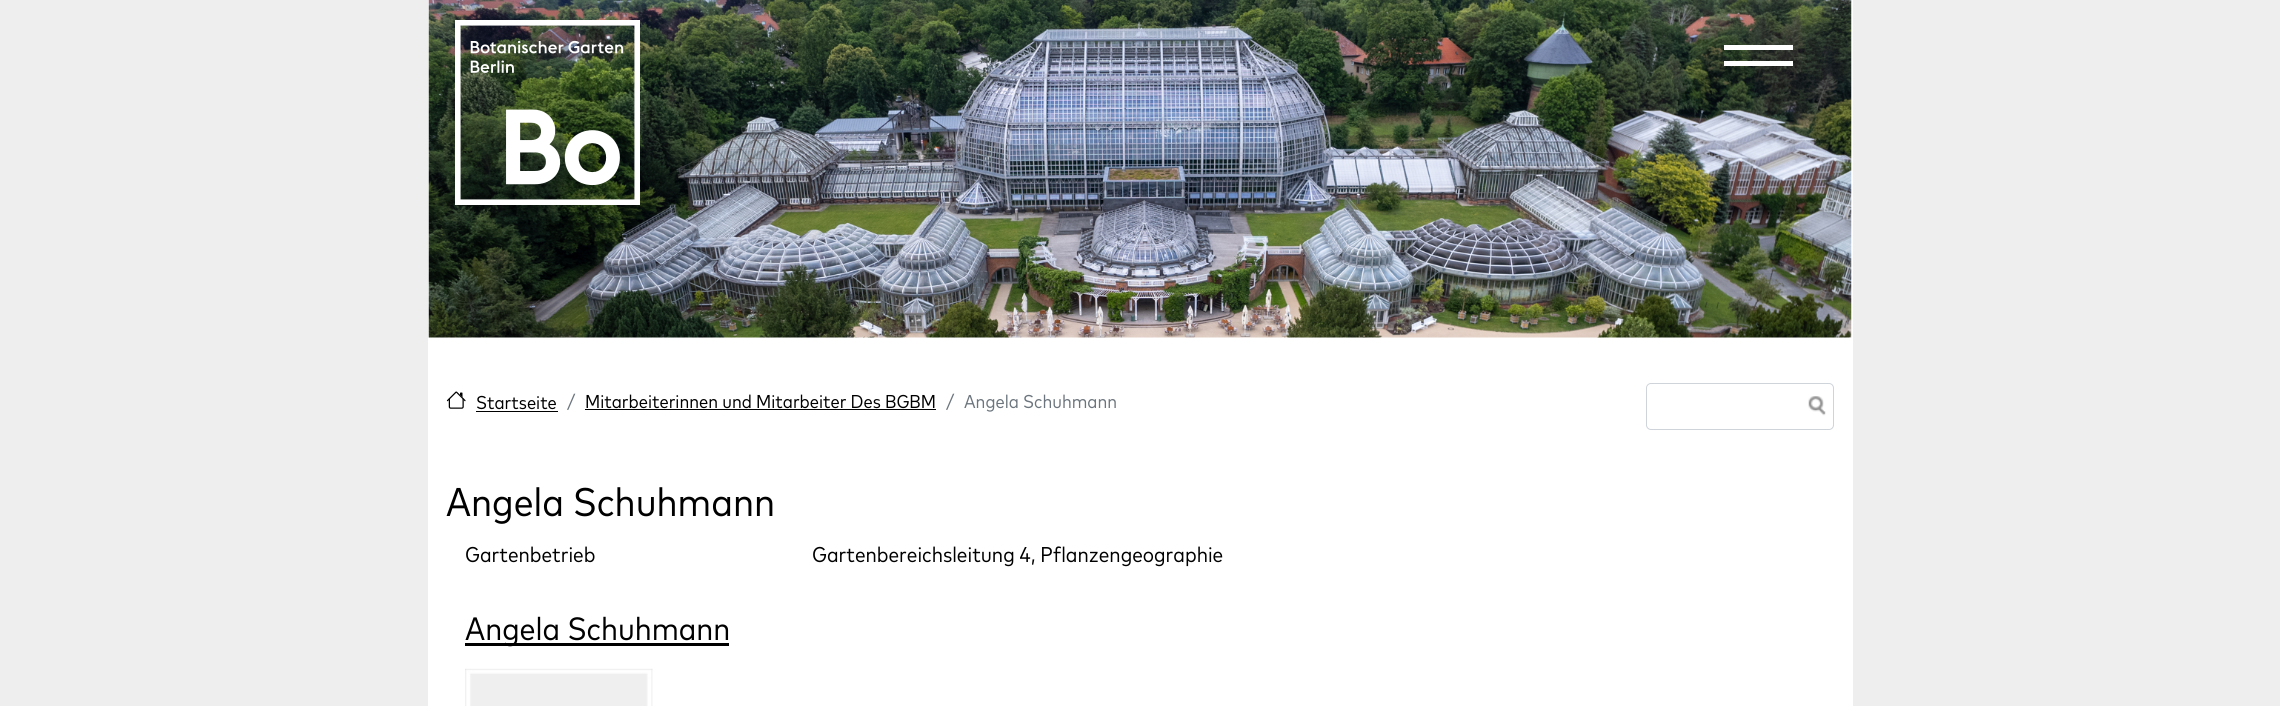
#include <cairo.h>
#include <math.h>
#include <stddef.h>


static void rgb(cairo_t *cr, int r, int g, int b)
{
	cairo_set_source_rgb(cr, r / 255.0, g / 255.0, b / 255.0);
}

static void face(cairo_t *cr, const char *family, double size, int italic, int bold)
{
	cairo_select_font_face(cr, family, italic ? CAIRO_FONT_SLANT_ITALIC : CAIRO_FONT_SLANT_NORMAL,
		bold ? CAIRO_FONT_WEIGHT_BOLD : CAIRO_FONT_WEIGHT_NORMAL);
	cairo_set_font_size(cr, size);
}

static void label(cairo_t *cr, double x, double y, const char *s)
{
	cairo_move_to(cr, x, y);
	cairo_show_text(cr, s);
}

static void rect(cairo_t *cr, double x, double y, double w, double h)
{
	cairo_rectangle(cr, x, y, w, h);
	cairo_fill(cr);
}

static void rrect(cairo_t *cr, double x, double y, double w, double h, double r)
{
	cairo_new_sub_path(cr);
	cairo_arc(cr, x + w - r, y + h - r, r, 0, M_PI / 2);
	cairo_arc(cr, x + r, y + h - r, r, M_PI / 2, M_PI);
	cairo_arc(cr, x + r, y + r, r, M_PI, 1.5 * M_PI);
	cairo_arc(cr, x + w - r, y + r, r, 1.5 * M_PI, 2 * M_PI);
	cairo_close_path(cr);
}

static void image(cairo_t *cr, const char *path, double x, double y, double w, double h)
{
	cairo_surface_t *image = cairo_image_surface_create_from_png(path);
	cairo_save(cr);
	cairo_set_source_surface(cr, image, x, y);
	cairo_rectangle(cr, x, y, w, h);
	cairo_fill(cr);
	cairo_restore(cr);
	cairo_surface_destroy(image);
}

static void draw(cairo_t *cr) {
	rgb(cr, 238, 238, 238);
	cairo_paint(cr);
	rgb(cr, 255, 255, 255);
	rect(cr, 428, 0, 1425, 706);
	image(cr, "image1.png", 428, 0, 1424, 338);
	image(cr, "image0.png", 455, 20, 185, 185);
	rect(cr, 1724, 45, 69, 5);
	rect(cr, 1724, 61, 69, 5);
	image(cr, "image2.png", 446, 391, 20, 18);
	face(cr, "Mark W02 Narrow", 18.6, 0, 0);
	rgb(cr, 0, 0, 0);
	label(cr, 476, 409, "Startseite");
	rect(cr, 476, 411, 82, 1);
	rgb(cr, 108, 117, 125);
	label(cr, 567, 408, "/");
	rgb(cr, 0, 0, 0);
	label(cr, 585, 408, "Mitarbeiterinnen und Mitarbeiter Des BGBM");
	rect(cr, 585, 409, 351, 1);
	rgb(cr, 108, 117, 125);
	label(cr, 946, 408, "/");
	label(cr, 964, 408, "Angela Schuhmann");
	rrect(cr, 1646.5, 383.5, 187, 46, 4.5);
	rgb(cr, 206, 212, 218);
	cairo_set_line_width(cr, 1);
	cairo_stroke(cr);
	image(cr, "image3.png", 1808, 396, 18, 20);
	face(cr, "Mark W02 Narrow", 40, 0, 0);
	rgb(cr, 0, 0, 0);
	label(cr, 446, 516, "Angela Schuhmann");
	face(cr, "Mark W02 Narrow", 21.4, 0, 0);
	label(cr, 465, 562, "Gartenbetrieb");
	rect(cr, 465, 643, 264, 3);
	face(cr, "Mark W02 Narrow", 32.25, 0, 0);
	label(cr, 465, 640, "Angela Schuhmann");
	face(cr, "Mark W02 Narrow", 21.4, 0, 0);
	label(cr, 812, 562, "Gartenbereichsleitung 4, Pflanzengeographie");
	image(cr, "image4.png", 465, 668, 188, 38);
}

int main(void) {
	cairo_surface_t *surface = cairo_image_surface_create(CAIRO_FORMAT_RGB24, 2280, 706);
	cairo_t *cr = cairo_create(surface);
	cairo_font_options_t *options = cairo_font_options_create();
	cairo_font_options_set_hint_metrics(options, CAIRO_HINT_METRICS_OFF);
	cairo_font_options_set_hint_style(options, CAIRO_HINT_STYLE_NONE);
	cairo_set_font_options(cr, options);
	cairo_set_miter_limit(cr, 4);
	draw(cr);
	cairo_surface_write_to_png(surface, "render.png");
	cairo_font_options_destroy(options);
	cairo_destroy(cr);
	cairo_surface_destroy(surface);
	return 0;
}
